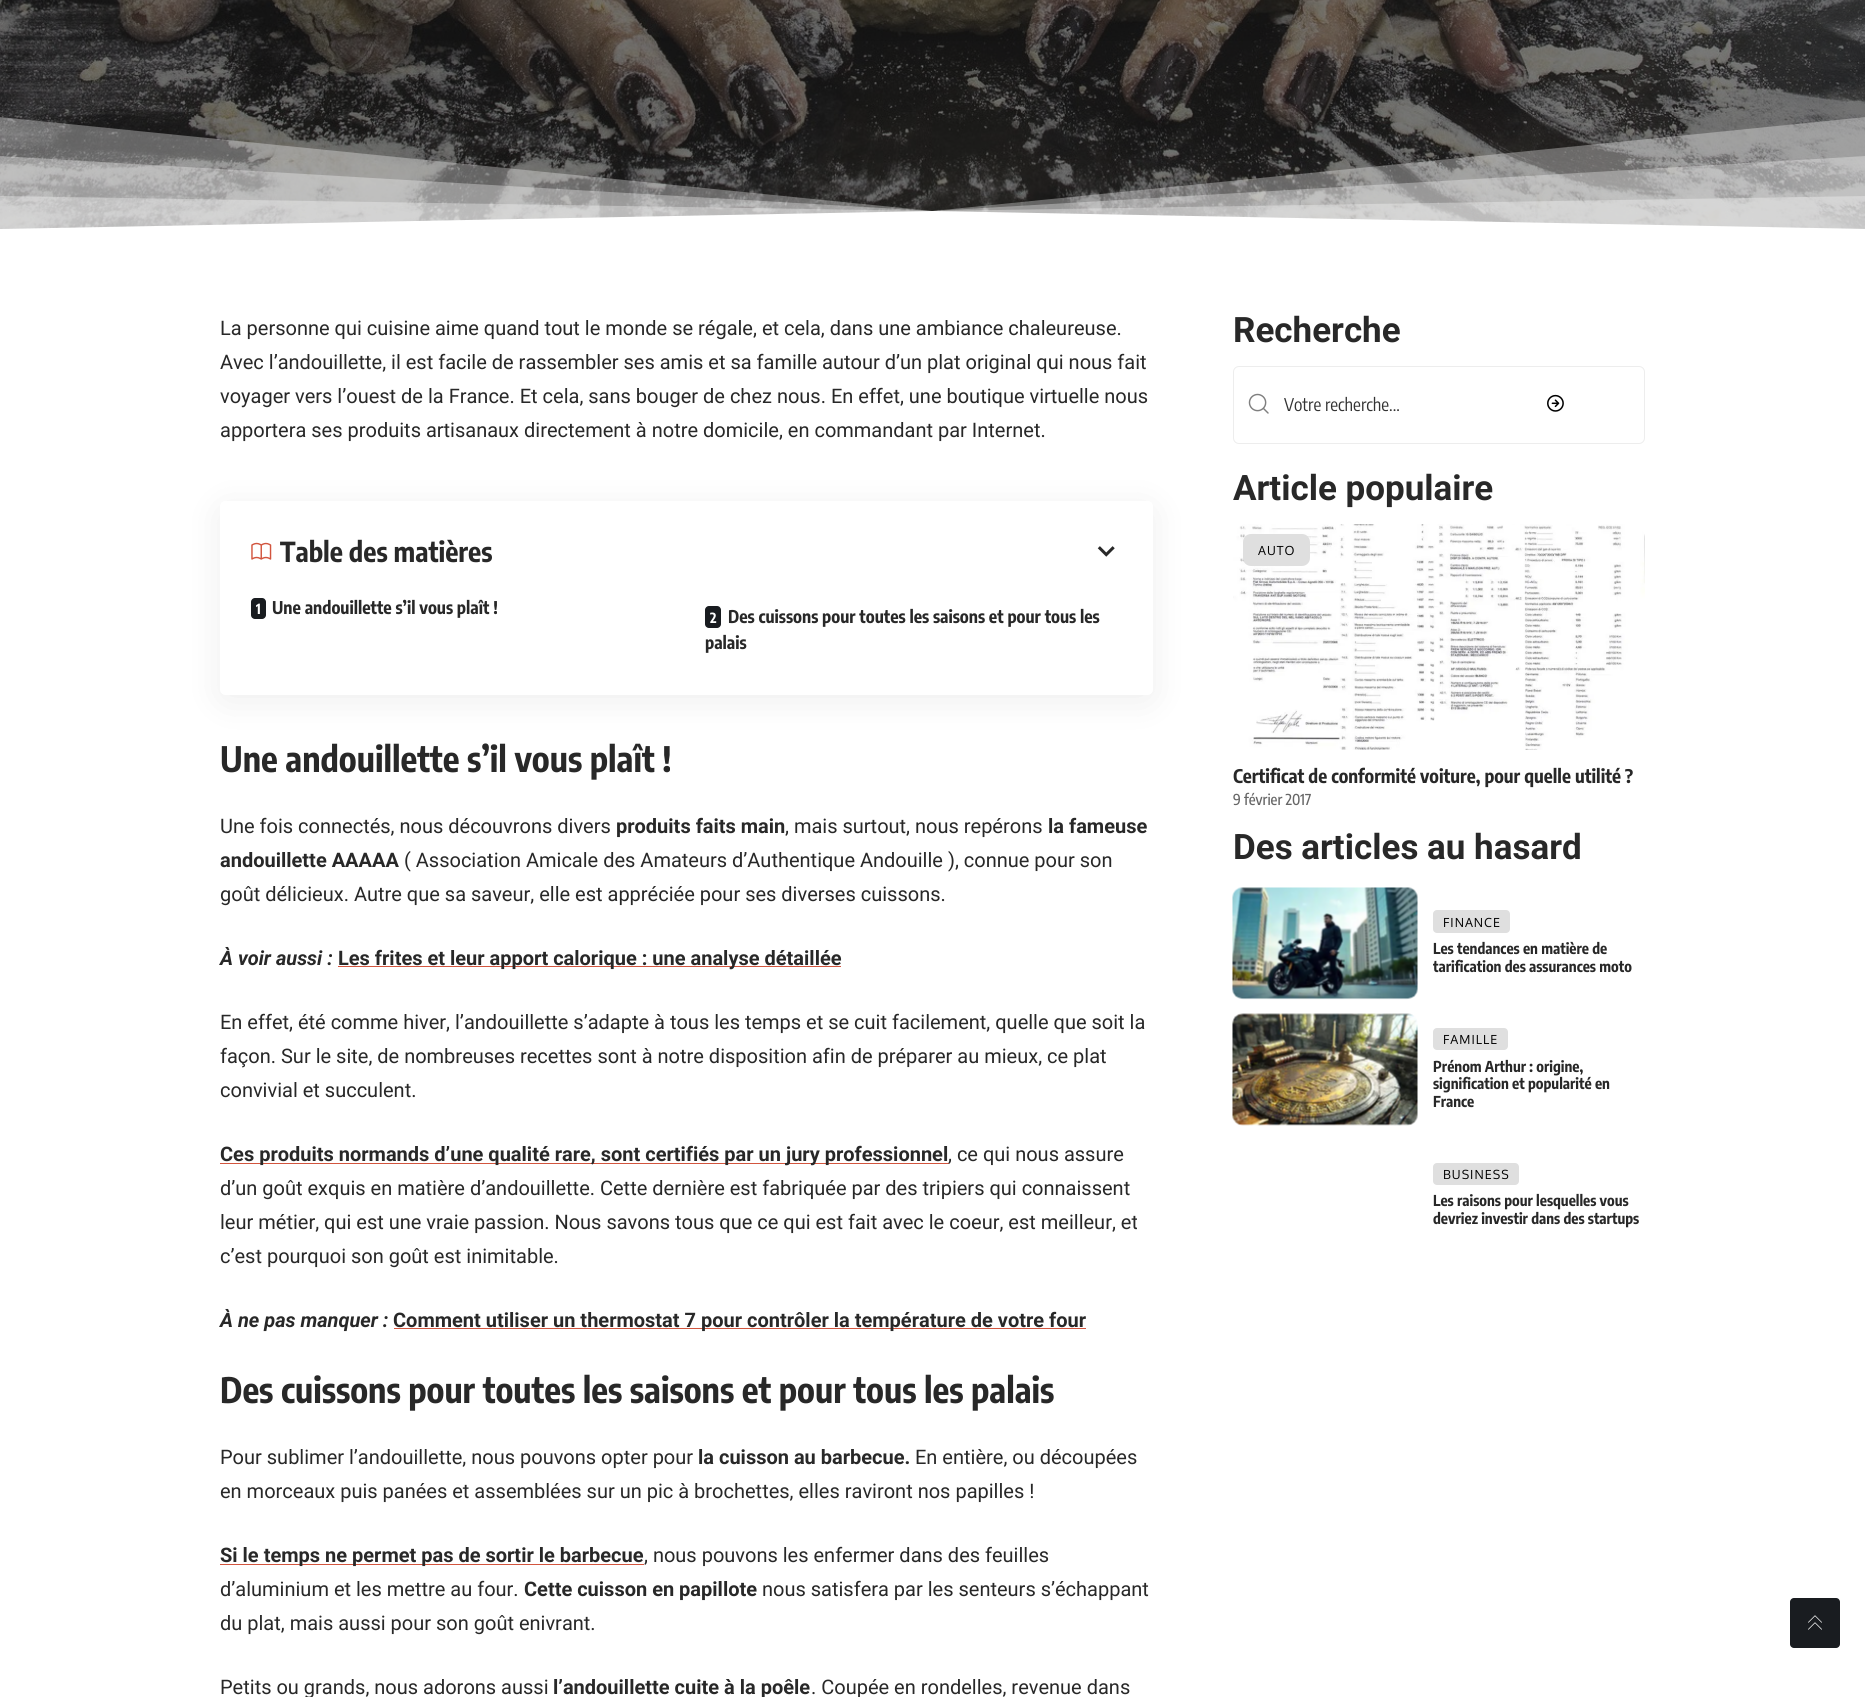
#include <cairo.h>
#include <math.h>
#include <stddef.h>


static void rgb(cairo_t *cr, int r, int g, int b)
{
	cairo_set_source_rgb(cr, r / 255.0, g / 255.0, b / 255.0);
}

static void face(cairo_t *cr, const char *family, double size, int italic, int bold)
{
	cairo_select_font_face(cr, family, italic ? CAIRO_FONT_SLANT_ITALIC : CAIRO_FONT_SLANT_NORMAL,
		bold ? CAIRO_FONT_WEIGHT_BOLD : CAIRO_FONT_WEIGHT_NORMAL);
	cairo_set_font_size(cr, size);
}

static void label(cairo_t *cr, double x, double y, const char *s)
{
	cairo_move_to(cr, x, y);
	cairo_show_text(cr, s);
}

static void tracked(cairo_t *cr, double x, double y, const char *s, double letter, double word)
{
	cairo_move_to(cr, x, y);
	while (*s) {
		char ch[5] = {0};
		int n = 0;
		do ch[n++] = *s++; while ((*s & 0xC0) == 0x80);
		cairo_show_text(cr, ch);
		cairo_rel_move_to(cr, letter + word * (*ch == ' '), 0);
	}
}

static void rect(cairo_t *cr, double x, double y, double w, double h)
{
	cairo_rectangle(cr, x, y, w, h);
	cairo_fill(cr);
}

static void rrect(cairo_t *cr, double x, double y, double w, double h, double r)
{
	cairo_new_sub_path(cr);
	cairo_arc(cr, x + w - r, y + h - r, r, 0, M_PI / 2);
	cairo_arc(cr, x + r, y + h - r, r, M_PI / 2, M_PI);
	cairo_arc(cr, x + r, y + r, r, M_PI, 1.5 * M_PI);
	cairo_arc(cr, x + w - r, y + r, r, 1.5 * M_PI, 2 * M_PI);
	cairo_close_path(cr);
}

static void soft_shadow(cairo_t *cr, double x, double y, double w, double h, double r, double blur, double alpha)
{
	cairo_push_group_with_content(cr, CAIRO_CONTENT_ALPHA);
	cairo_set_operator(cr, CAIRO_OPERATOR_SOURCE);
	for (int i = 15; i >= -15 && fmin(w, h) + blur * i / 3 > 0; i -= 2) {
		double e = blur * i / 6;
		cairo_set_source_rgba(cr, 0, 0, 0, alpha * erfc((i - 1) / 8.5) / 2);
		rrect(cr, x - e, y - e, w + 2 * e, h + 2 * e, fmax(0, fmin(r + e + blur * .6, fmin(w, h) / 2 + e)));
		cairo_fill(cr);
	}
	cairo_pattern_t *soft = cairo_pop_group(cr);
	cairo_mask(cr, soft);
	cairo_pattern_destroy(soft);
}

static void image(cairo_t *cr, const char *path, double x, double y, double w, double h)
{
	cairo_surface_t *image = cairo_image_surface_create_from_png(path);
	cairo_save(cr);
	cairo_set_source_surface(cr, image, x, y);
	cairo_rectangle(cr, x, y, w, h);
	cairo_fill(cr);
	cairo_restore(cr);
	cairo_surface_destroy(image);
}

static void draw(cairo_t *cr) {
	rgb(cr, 255, 255, 255);
	cairo_paint(cr);
	image(cr, "image0.png", 0, 0, 1865, 229);
	cairo_set_source_rgba(cr, 1, 1, 1, 0.33);
	cairo_new_path(cr);
	cairo_move_to(cr, 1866, 237);
	cairo_line_to(cr, 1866, 117);
	cairo_line_to(cr, 932, 211);
	cairo_line_to(cr, -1, 117);
	cairo_line_to(cr, -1, 237);
	cairo_close_path(cr);
	cairo_fill(cr);
	cairo_new_path(cr);
	cairo_move_to(cr, 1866, 237);
	cairo_line_to(cr, 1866, 156);
	cairo_line_to(cr, 932, 211);
	cairo_line_to(cr, -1, 156);
	cairo_line_to(cr, -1, 237);
	cairo_close_path(cr);
	cairo_fill(cr);
	cairo_new_path(cr);
	cairo_move_to(cr, 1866, 237);
	cairo_line_to(cr, 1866, 196);
	cairo_line_to(cr, 932, 211);
	cairo_line_to(cr, -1, 196);
	cairo_line_to(cr, -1, 237);
	cairo_close_path(cr);
	cairo_fill(cr);
	rgb(cr, 255, 255, 255);
	cairo_new_path(cr);
	cairo_move_to(cr, 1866, 237);
	cairo_line_to(cr, 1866, 229);
	cairo_line_to(cr, 932, 211);
	cairo_line_to(cr, -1, 229);
	cairo_line_to(cr, -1, 237);
	cairo_close_path(cr);
	cairo_fill(cr);
	face(cr, "Roboto", 20, 0, 0);
	rgb(cr, 40, 40, 40);
	label(cr, 220, 335, "La personne qui cuisine aime quand tout le monde se régale, et cela, dans une ambiance chaleureuse.");
	label(cr, 220, 369, "Avec l’andouillette, il est facile de rassembler ses amis et sa famille autour d’un plat original qui nous fait");
	label(cr, 220, 403, "voyager vers l’ouest de la France. Et cela, sans bouger de chez nous. En effet, une boutique virtuelle nous");
	label(cr, 220, 437, "apportera ses produits artisanaux directement à notre domicile, en commandant par Internet.");
	cairo_save(cr);
	cairo_set_fill_rule(cr, CAIRO_FILL_RULE_EVEN_ODD);
	cairo_new_path(cr);
	cairo_move_to(cr, 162, 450);
	cairo_line_to(cr, 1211, 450);
	cairo_line_to(cr, 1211, 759);
	cairo_line_to(cr, 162, 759);
	cairo_close_path(cr);
	cairo_move_to(cr, 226, 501);
	cairo_line_to(cr, 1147, 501);
	cairo_curve_to(cr, 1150.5, 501, 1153, 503.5, 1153, 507);
	cairo_line_to(cr, 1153, 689);
	cairo_curve_to(cr, 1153, 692.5, 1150.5, 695, 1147, 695);
	cairo_line_to(cr, 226, 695);
	cairo_curve_to(cr, 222.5, 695, 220, 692.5, 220, 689);
	cairo_line_to(cr, 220, 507);
	cairo_curve_to(cr, 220, 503.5, 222.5, 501, 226, 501);
	cairo_close_path(cr);
	cairo_clip(cr);
	rgb(cr, 0, 0, 0);
	soft_shadow(cr, 220, 508, 933, 193, 6, 19, 0.07);
	cairo_restore(cr);
	image(cr, "image1.png", 251, 542, 21, 18);
	face(cr, "Encode Sans Condensed", 27.5, 0, 1);
	label(cr, 280, 562, "Table des matières");
	image(cr, "image2.png", 1097, 546, 18, 11);
	rgb(cr, 25, 28, 32);
	rrect(cr, 251, 598, 15, 21, 4);
	cairo_fill(cr);
	face(cr, "Encode Sans Condensed", 14, 0, 1);
	rgb(cr, 255, 255, 255);
	label(cr, 256, 614, "1");
	face(cr, "Encode Sans Condensed", 17.5, 0, 1);
	rgb(cr, 40, 40, 40);
	label(cr, 272, 614, "Une andouillette s’il vous plaît !");
	rgb(cr, 25, 28, 32);
	rrect(cr, 705, 606, 16, 22, 4);
	cairo_fill(cr);
	face(cr, "Encode Sans Condensed", 14, 0, 1);
	rgb(cr, 255, 255, 255);
	label(cr, 710, 623, "2");
	face(cr, "Encode Sans Condensed", 17.5, 0, 1);
	rgb(cr, 40, 40, 40);
	label(cr, 728, 623, "Des cuissons pour toutes les saisons et pour tous les");
	label(cr, 705, 649, "palais");
	face(cr, "Encode Sans Condensed", 35, 0, 1);
	label(cr, 220, 772, "Une andouillette s’il vous plaît !");
	face(cr, "Roboto", 20, 0, 0);
	label(cr, 220, 833, "Une fois connectés, nous découvrons divers");
	face(cr, "Roboto", 20, 0, 1);
	label(cr, 616, 833, "produits faits main");
	face(cr, "Roboto", 20, 0, 0);
	label(cr, 785, 833, ", mais surtout, nous repérons");
	face(cr, "Roboto", 20, 0, 1);
	label(cr, 1048, 833, "la fameuse");
	label(cr, 220, 867, "andouillette AAAAA");
	face(cr, "Roboto", 20, 0, 0);
	label(cr, 404, 867, "( Association Amicale des Amateurs d’Authentique Andouille ), connue pour son");
	label(cr, 220, 901, "goût délicieux. Autre que sa saveur, elle est appréciée pour ses diverses cuissons.");
	face(cr, "Roboto", 20, 1, 1);
	label(cr, 220, 965, "À voir aussi :");
	rgb(cr, 210, 85, 62);
	rect(cr, 338, 966, 503, 1);
	face(cr, "Roboto", 20, 0, 1);
	rgb(cr, 40, 40, 40);
	label(cr, 338, 965, "Les frites et leur apport calorique : une analyse détaillée");
	face(cr, "Roboto", 20, 0, 0);
	label(cr, 220, 1029, "En effet, été comme hiver, l’andouillette s’adapte à tous les temps et se cuit facilement, quelle que soit la");
	label(cr, 220, 1063, "façon. Sur le site, de nombreuses recettes sont à notre disposition afin de préparer au mieux, ce plat");
	label(cr, 220, 1097, "convivial et succulent.");
	rgb(cr, 210, 85, 62);
	rect(cr, 220, 1163, 729, 1);
	face(cr, "Roboto", 20, 0, 1);
	rgb(cr, 40, 40, 40);
	label(cr, 220, 1161, "Ces produits normands d’une qualité rare, sont certifiés par un jury professionnel");
	face(cr, "Roboto", 20, 0, 0);
	label(cr, 948, 1161, ", ce qui nous assure");
	label(cr, 220, 1195, "d’un goût exquis en matière d’andouillette. Cette dernière est fabriquée par des tripiers qui connaissent");
	label(cr, 220, 1229, "leur métier, qui est une vraie passion. Nous savons tous que ce qui est fait avec le coeur, est meilleur, et");
	label(cr, 220, 1263, "c’est pourquoi son goût est inimitable.");
	face(cr, "Roboto", 20, 1, 1);
	label(cr, 220, 1327, "À ne pas manquer :");
	rgb(cr, 210, 85, 62);
	rect(cr, 394, 1328, 692, 1);
	face(cr, "Roboto", 20, 0, 1);
	rgb(cr, 40, 40, 40);
	label(cr, 393, 1327, "Comment utiliser un thermostat 7 pour contrôler la température de votre four");
	face(cr, "Encode Sans Condensed", 35, 0, 1);
	label(cr, 220, 1403, "Des cuissons pour toutes les saisons et pour tous les palais");
	face(cr, "Roboto", 20, 0, 0);
	label(cr, 220, 1464, "Pour sublimer l’andouillette, nous pouvons opter pour");
	face(cr, "Roboto", 20, 0, 1);
	label(cr, 698, 1464, "la cuisson au barbecue.");
	face(cr, "Roboto", 20, 0, 0);
	label(cr, 915, 1464, "En entière, ou découpées");
	label(cr, 220, 1498, "en morceaux puis panées et assemblées sur un pic à brochettes, elles raviront nos papilles !");
	rgb(cr, 210, 85, 62);
	rect(cr, 220, 1564, 424, 1);
	face(cr, "Roboto", 20, 0, 1);
	rgb(cr, 40, 40, 40);
	label(cr, 220, 1562, "Si le temps ne permet pas de sortir le barbecue");
	face(cr, "Roboto", 20, 0, 0);
	label(cr, 644, 1562, ", nous pouvons les enfermer dans des feuilles");
	label(cr, 220, 1596, "d’aluminium et les mettre au four.");
	face(cr, "Roboto", 20, 0, 1);
	label(cr, 524, 1596, "Cette cuisson en papillote");
	face(cr, "Roboto", 20, 0, 0);
	label(cr, 762, 1596, "nous satisfera par les senteurs s’échappant");
	label(cr, 220, 1630, "du plat, mais aussi pour son goût enivrant.");
	label(cr, 220, 1694, "Petits ou grands, nous adorons aussi");
	face(cr, "Roboto", 20, 0, 1);
	label(cr, 553, 1694, "l’andouillette cuite à la poêle");
	face(cr, "Roboto", 20, 0, 0);
	label(cr, 811, 1694, ". Coupée en rondelles, revenue dans");
	face(cr, "Roboto", 35, 0, 1);
	label(cr, 1233, 342, "Recherche");
	rrect(cr, 1233.5, 366.5, 411, 77, 5.5);
	rgb(cr, 237, 237, 237);
	cairo_set_line_width(cr, 1);
	cairo_stroke(cr);
	image(cr, "image3.png", 1248, 393, 21, 21);
	face(cr, "Encode Sans Condensed", 17.5, 0, 0);
	rgb(cr, 51, 51, 51);
	label(cr, 1284, 411, "Votre recherche...");
	image(cr, "image4.png", 1547, 394, 17, 18);
	face(cr, "Roboto", 35, 0, 1);
	rgb(cr, 40, 40, 40);
	label(cr, 1233, 500, "Article populaire");
	image(cr, "image5.png", 1233, 524, 412, 226);
	rgb(cr, 223, 223, 223);
	rrect(cr, 1243, 534, 67, 32, 8);
	cairo_fill(cr);
	face(cr, "Oxygen", 12.5, 0, 0);
	rgb(cr, 0, 0, 0);
	tracked(cr, 1258, 555, "AUTO", 1, 0);
	face(cr, "Encode Sans Condensed", 18.75, 0, 1);
	rgb(cr, 40, 40, 40);
	label(cr, 1233, 783, "Certificat de conformité voiture, pour quelle utilité ?");
	face(cr, "Encode Sans Condensed Medium", 15, 0, 0);
	rgb(cr, 102, 102, 102);
	label(cr, 1233, 805, "9 février 2017");
	face(cr, "Roboto", 35, 0, 1);
	rgb(cr, 40, 40, 40);
	label(cr, 1233, 859, "Des articles au hasard");
	image(cr, "image6.png", 1232, 887, 186, 113);
	rgb(cr, 223, 223, 223);
	rrect(cr, 1433, 910, 77, 23, 4);
	cairo_fill(cr);
	face(cr, "Oxygen", 12.5, 0, 0);
	rgb(cr, 0, 0, 0);
	tracked(cr, 1443, 927, "FINANCE", 1, 0);
	face(cr, "Encode Sans Condensed", 15, 0, 1);
	rgb(cr, 40, 40, 40);
	label(cr, 1433, 954, "Les tendances en matière de");
	label(cr, 1433, 972, "tarification des assurances moto");
	image(cr, "image7.png", 1232, 1013, 186, 113);
	rgb(cr, 223, 223, 223);
	rrect(cr, 1433, 1028, 75, 22, 4);
	cairo_fill(cr);
	face(cr, "Oxygen", 12.5, 0, 0);
	rgb(cr, 0, 0, 0);
	tracked(cr, 1443, 1044, "FAMILLE", 1, 0);
	face(cr, "Encode Sans Condensed", 15, 0, 1);
	rgb(cr, 40, 40, 40);
	label(cr, 1433, 1072, "Prénom Arthur : origine,");
	label(cr, 1433, 1089, "signification et popularité en");
	label(cr, 1433, 1107, "France");
	rgb(cr, 223, 223, 223);
	rrect(cr, 1433, 1163, 86, 22, 4);
	cairo_fill(cr);
	face(cr, "Oxygen", 12.5, 0, 0);
	rgb(cr, 0, 0, 0);
	tracked(cr, 1443, 1179, "BUSINESS", 1, 0);
	face(cr, "Encode Sans Condensed", 15, 0, 1);
	rgb(cr, 40, 40, 40);
	label(cr, 1433, 1206, "Les raisons pour lesquelles vous");
	label(cr, 1433, 1224, "devriez investir dans des startups");
	rgb(cr, 25, 28, 32);
	rrect(cr, 1790, 1598, 50, 50, 4);
	cairo_fill(cr);
	image(cr, "image8.png", 1808, 1615, 14, 15);
}

int main(void) {
	cairo_surface_t *surface = cairo_image_surface_create(CAIRO_FORMAT_RGB24, 1865, 1697);
	cairo_t *cr = cairo_create(surface);
	cairo_font_options_t *options = cairo_font_options_create();
	cairo_font_options_set_hint_metrics(options, CAIRO_HINT_METRICS_OFF);
	cairo_font_options_set_hint_style(options, CAIRO_HINT_STYLE_NONE);
	cairo_set_font_options(cr, options);
	cairo_set_miter_limit(cr, 4);
	draw(cr);
	cairo_surface_write_to_png(surface, "render.png");
	cairo_font_options_destroy(options);
	cairo_destroy(cr);
	cairo_surface_destroy(surface);
	return 0;
}
